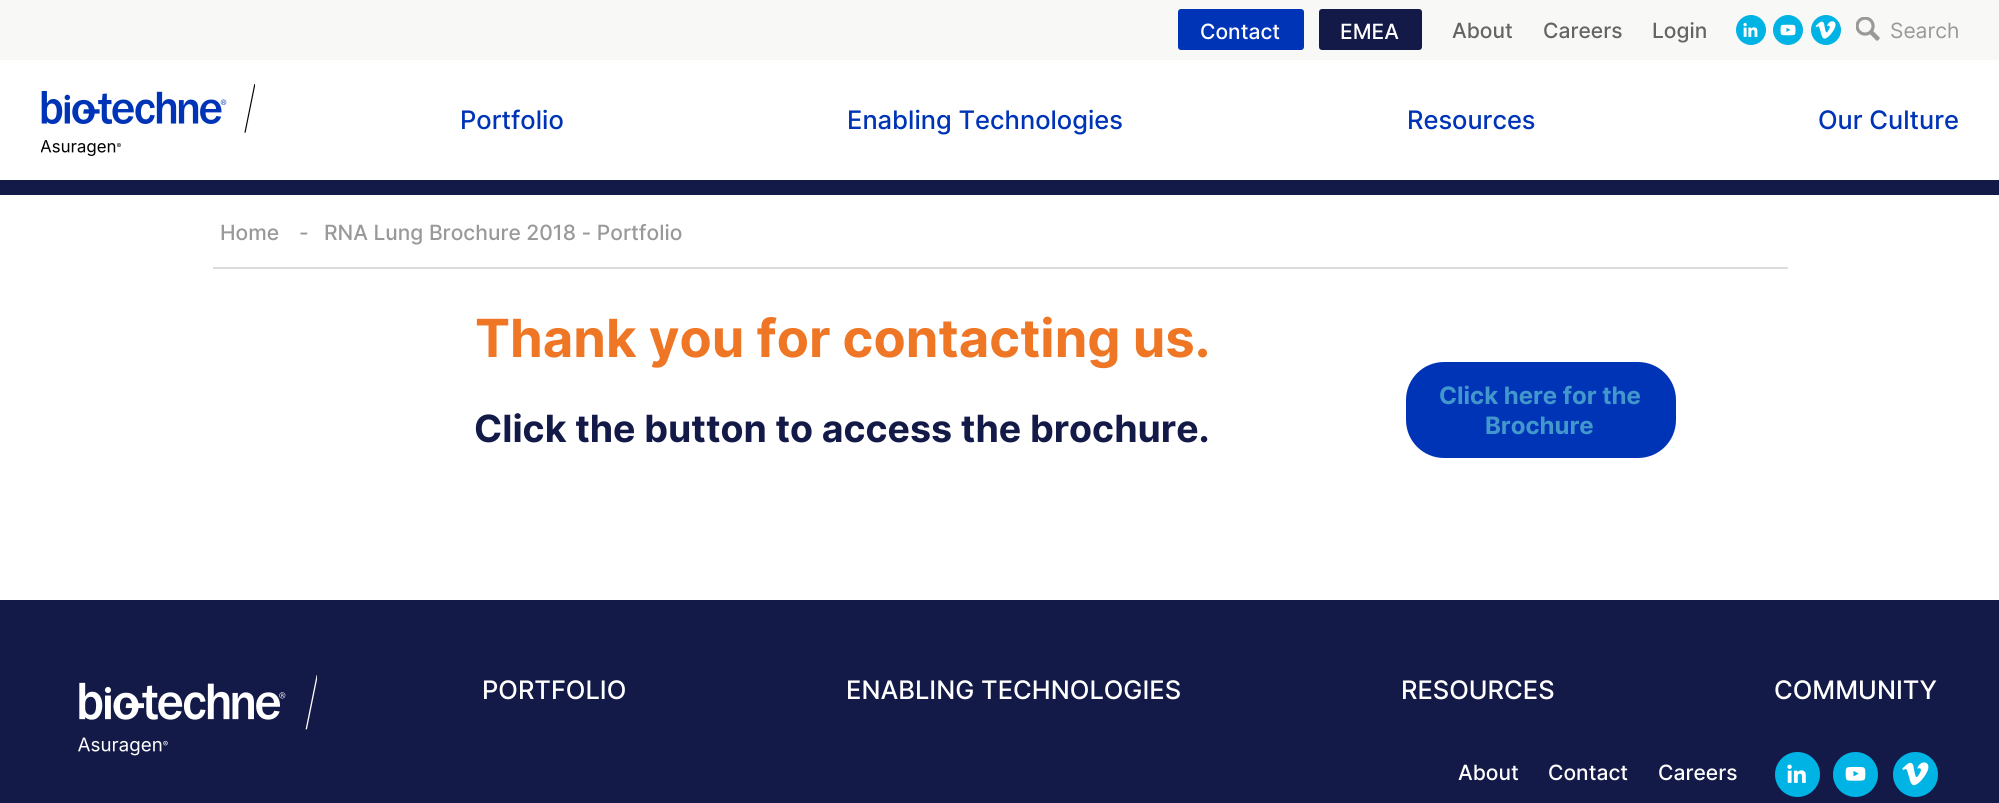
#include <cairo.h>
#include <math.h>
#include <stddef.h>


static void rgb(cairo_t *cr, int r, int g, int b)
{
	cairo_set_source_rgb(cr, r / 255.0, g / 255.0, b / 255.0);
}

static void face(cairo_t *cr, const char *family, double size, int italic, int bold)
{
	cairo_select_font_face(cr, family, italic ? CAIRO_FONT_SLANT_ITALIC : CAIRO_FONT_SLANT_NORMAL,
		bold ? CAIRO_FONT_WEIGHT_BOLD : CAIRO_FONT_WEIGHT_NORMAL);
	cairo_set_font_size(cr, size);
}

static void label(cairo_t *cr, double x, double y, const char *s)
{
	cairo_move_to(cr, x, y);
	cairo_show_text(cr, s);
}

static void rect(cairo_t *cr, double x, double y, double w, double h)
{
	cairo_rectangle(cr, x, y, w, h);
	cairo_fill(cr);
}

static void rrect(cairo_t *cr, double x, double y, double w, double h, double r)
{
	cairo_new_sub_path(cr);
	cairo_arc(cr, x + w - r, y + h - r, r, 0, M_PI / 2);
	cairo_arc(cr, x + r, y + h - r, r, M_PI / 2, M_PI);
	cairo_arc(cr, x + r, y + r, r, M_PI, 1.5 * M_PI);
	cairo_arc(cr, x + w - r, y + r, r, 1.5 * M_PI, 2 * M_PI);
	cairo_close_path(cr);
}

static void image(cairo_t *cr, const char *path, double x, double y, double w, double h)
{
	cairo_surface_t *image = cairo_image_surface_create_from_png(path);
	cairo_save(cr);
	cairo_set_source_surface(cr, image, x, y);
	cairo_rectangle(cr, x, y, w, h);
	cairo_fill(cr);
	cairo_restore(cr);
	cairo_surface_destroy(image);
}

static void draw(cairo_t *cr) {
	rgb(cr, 255, 255, 255);
	cairo_paint(cr);
	rgb(cr, 248, 248, 246);
	rect(cr, 0, 0, 1999, 60);
	rgb(cr, 0, 52, 183);
	rrect(cr, 1178, 9, 126, 41, 3);
	cairo_fill(cr);
	face(cr, "Inter Medium", 21, 0, 0);
	rgb(cr, 255, 255, 255);
	label(cr, 1200, 39, "Contact");
	rgb(cr, 20, 26, 71);
	rrect(cr, 1319, 9, 103, 41, 3);
	cairo_fill(cr);
	rgb(cr, 255, 255, 255);
	label(cr, 1340, 39, "EMEA");
	rgb(cr, 100, 100, 100);
	label(cr, 1452, 38, "About");
	label(cr, 1543, 38, "Careers");
	label(cr, 1652, 38, "Login");
	rgb(cr, 0, 179, 229);
	cairo_new_path(cr);
	cairo_arc(cr, 1751, 30, 15, 0, 2 * M_PI);
	cairo_fill(cr);
	image(cr, "image0.png", 1743, 22, 15, 15);
	cairo_arc(cr, 1788, 30, 15, 0, 2 * M_PI);
	cairo_fill(cr);
	image(cr, "image1.png", 1780, 24, 16, 12);
	cairo_arc(cr, 1826, 30, 15, 0, 2 * M_PI);
	cairo_fill(cr);
	image(cr, "image2.png", 1815, 21, 21, 18);
	image(cr, "image3.png", 1856, 17, 24, 24);
	face(cr, "Inter", 21, 0, 0);
	rgb(cr, 153, 153, 153);
	label(cr, 1890, 38, "Search");
	image(cr, "image4.png", 41, 84, 214, 72);
	face(cr, "Inter Medium", 25.5, 0, 0);
	rgb(cr, 0, 52, 183);
	label(cr, 460, 129, "Portfolio");
	label(cr, 847, 129, "Enabling Technologies");
	label(cr, 1407, 129, "Resources");
	label(cr, 1818, 129, "Our Culture");
	rgb(cr, 20, 26, 71);
	rect(cr, 0, 180, 1999, 15);
	rgb(cr, 221, 221, 221);
	rect(cr, 213, 267, 1575, 2);
	face(cr, "Inter Medium", 21, 0, 0);
	rgb(cr, 153, 153, 153);
	label(cr, 220, 240, "Home");
	label(cr, 299, 240, "-");
	label(cr, 324, 240, "RNA Lung Brochure 2018 - Portfolio");
	face(cr, "Inter", 52.5, 0, 1);
	rgb(cr, 238, 118, 36);
	label(cr, 475, 357, "Thank you for contacting us.");
	face(cr, "Inter", 37.5, 0, 1);
	rgb(cr, 20, 26, 71);
	label(cr, 474, 442, "Click the button to access the brochure.");
	rgb(cr, 0, 52, 183);
	rrect(cr, 1406, 362, 270, 96, 38);
	cairo_fill(cr);
	face(cr, "Inter", 24, 0, 1);
	rgb(cr, 66, 152, 204);
	label(cr, 1439, 404, "Click here for the");
	label(cr, 1485, 434, "Brochure");
	rgb(cr, 20, 26, 71);
	rect(cr, 0, 600, 1999, 203);
	image(cr, "image5.png", 78, 675, 239, 81);
	face(cr, "Inter Medium", 25.5, 0, 0);
	rgb(cr, 255, 255, 255);
	label(cr, 482, 699, "PORTFOLIO");
	label(cr, 846, 699, "ENABLING TECHNOLOGIES");
	label(cr, 1401, 699, "RESOURCES");
	label(cr, 1774, 699, "COMMUNITY");
	face(cr, "Inter Medium", 21, 0, 0);
	label(cr, 1458, 780, "About");
	label(cr, 1548, 780, "Contact");
	label(cr, 1658, 780, "Careers");
	rgb(cr, 0, 179, 229);
	cairo_new_path(cr);
	cairo_arc(cr, 1797.5, 774.5, 22.5, 0, 2 * M_PI);
	cairo_fill(cr);
	image(cr, "image6.png", 1787, 764, 19, 19);
	cairo_arc(cr, 1855.5, 774.5, 22.5, 0, 2 * M_PI);
	cairo_fill(cr);
	image(cr, "image7.png", 1845, 766, 21, 15);
	cairo_arc(cr, 1915.5, 774.5, 22.5, 0, 2 * M_PI);
	cairo_fill(cr);
	image(cr, "image8.png", 1902, 762, 27, 24);
}

int main(void) {
	cairo_surface_t *surface = cairo_image_surface_create(CAIRO_FORMAT_RGB24, 1999, 803);
	cairo_t *cr = cairo_create(surface);
	cairo_font_options_t *options = cairo_font_options_create();
	cairo_font_options_set_hint_metrics(options, CAIRO_HINT_METRICS_OFF);
	cairo_font_options_set_hint_style(options, CAIRO_HINT_STYLE_NONE);
	cairo_set_font_options(cr, options);
	cairo_set_miter_limit(cr, 4);
	draw(cr);
	cairo_surface_write_to_png(surface, "render.png");
	cairo_font_options_destroy(options);
	cairo_destroy(cr);
	cairo_surface_destroy(surface);
	return 0;
}
